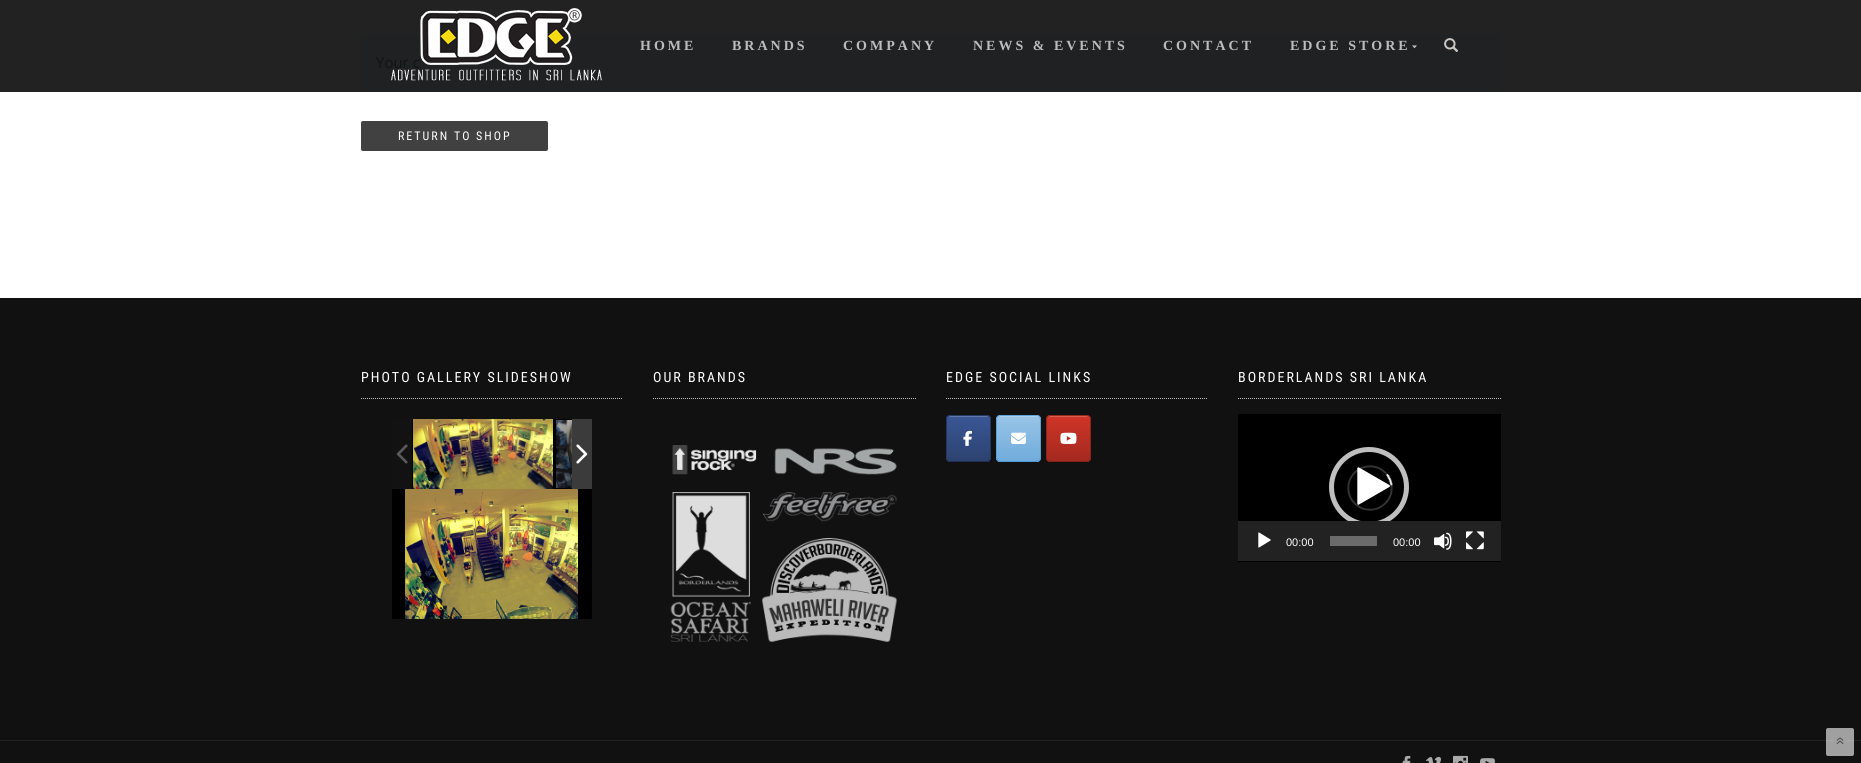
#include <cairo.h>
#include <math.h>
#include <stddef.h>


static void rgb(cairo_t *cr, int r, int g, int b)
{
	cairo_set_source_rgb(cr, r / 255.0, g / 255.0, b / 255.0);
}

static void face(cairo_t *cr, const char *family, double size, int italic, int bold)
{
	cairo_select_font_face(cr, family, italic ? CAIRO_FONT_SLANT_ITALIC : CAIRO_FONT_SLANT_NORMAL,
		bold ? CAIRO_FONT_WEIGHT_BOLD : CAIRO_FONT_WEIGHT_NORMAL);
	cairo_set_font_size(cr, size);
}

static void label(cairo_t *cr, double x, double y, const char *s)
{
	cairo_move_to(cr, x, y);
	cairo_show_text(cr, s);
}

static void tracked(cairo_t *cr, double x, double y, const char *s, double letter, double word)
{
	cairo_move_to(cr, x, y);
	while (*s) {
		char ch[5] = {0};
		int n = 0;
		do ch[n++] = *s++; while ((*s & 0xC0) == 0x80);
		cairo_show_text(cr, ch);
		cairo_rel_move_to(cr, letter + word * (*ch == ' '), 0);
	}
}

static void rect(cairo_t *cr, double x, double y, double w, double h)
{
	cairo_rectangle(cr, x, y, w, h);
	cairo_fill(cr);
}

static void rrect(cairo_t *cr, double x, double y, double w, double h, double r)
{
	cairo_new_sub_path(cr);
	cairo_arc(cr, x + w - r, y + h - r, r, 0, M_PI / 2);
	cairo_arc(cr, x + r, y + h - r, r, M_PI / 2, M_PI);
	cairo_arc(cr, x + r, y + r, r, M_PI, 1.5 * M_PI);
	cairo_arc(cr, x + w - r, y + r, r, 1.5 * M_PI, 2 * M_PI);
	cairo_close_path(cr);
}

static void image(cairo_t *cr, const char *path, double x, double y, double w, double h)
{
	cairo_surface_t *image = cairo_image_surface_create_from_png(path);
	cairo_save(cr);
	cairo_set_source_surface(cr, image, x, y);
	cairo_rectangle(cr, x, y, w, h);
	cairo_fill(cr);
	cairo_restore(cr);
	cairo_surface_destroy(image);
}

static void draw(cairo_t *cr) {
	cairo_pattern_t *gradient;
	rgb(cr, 255, 255, 255);
	cairo_paint(cr);
	rgb(cr, 34, 34, 34);
	rect(cr, 0, 0, 1861, 92);
	rgb(cr, 31, 33, 34);
	rrect(cr, 361, 34, 1140, 57, 2);
	cairo_fill(cr);
	face(cr, "Open Sans", 15, 0, 0);
	rgb(cr, 14, 20, 23);
	label(cr, 376, 68, "Your c");
	image(cr, "image0.png", 391, 8, 211, 73);
	face(cr, "Liberation Serif", 14, 0, 1);
	rgb(cr, 188, 188, 189);
	tracked(cr, 640, 50, "HOME", 3, 0);
	tracked(cr, 732, 50, "BRANDS", 3, 0);
	tracked(cr, 843, 50, "COMPANY", 3, 0);
	tracked(cr, 973, 50, "NEWS & EVENTS", 3, 0);
	tracked(cr, 1163, 50, "CONTACT", 3, 0);
	tracked(cr, 1290, 50, "EDGE STORE", 3, 0);
	image(cr, "image1.png", 1412, 45, 5, 4);
	image(cr, "image2.png", 1444, 38, 15, 14);
	rgb(cr, 65, 65, 65);
	rrect(cr, 361, 121, 187, 30, 2);
	cairo_fill(cr);
	face(cr, "Roboto Condensed", 12, 0, 0);
	rgb(cr, 255, 255, 255);
	tracked(cr, 398, 140, "RETURN TO SHOP", 2, 0);
	rgb(cr, 17, 17, 17);
	rect(cr, 0, 298, 1861, 442);
	cairo_new_path(cr);
	cairo_move_to(cr, 361, 398.5);
	cairo_line_to(cr, 623, 398.5);
	rgb(cr, 194, 194, 194);
	cairo_set_line_width(cr, 1);
	cairo_set_dash(cr, (double[]){1, 1}, 2, 0);
	cairo_stroke(cr);
	face(cr, "Roboto Condensed", 14, 0, 0);
	rgb(cr, 255, 255, 255);
	tracked(cr, 361, 382, "PHOTO GALLERY SLIDESHOW", 2, 0);
	rgb(cr, 0, 0, 0);
	rect(cr, 392, 419, 200, 200);
	rgb(cr, 18, 18, 18);
	rect(cr, 392, 419, 20, 70);
	image(cr, "image3.png", 396, 444, 12, 20);
	image(cr, "image4.png", 413, 419, 140, 70);
	image(cr, "image5.png", 556, 420, 16, 68);
	rgb(cr, 59, 59, 59);
	rect(cr, 572, 419, 20, 70);
	image(cr, "image6.png", 576, 444, 12, 20);
	image(cr, "image7.png", 405, 489, 173, 130);
	cairo_new_path(cr);
	cairo_move_to(cr, 653, 398.5);
	cairo_line_to(cr, 916, 398.5);
	rgb(cr, 194, 194, 194);
	cairo_stroke(cr);
	rgb(cr, 255, 255, 255);
	tracked(cr, 653, 382, "OUR BRANDS", 2, 0);
	image(cr, "image8.png", 670, 445, 227, 197);
	cairo_new_path(cr);
	cairo_move_to(cr, 946, 398.5);
	cairo_line_to(cr, 1208, 398.5);
	rgb(cr, 194, 194, 194);
	cairo_stroke(cr);
	rgb(cr, 255, 255, 255);
	tracked(cr, 946, 382, "EDGE SOCIAL LINKS", 2, 0);
	cairo_save(cr);
	rrect(cr, 946, 415, 45, 47, 4);
	cairo_clip(cr);
	gradient = cairo_pattern_create_linear(947, 416, 947, 371);
	cairo_pattern_add_color_stop_rgba(gradient, 0, 0.173, 0.259, 0.439, 1);
	cairo_pattern_add_color_stop_rgba(gradient, 1, 0.227, 0.341, 0.584, 1);
	cairo_set_source(cr, gradient);
	cairo_pattern_destroy(gradient);
	rect(cr, 946, 415, 45, 1);
	gradient = cairo_pattern_create_linear(947, 461, 947, 416);
	cairo_pattern_add_color_stop_rgba(gradient, 0, 0.173, 0.259, 0.439, 1);
	cairo_pattern_add_color_stop_rgba(gradient, 1, 0.227, 0.341, 0.584, 1);
	cairo_set_source(cr, gradient);
	cairo_pattern_destroy(gradient);
	rect(cr, 946, 416, 45, 45);
	gradient = cairo_pattern_create_linear(947, 506, 947, 461);
	cairo_pattern_add_color_stop_rgba(gradient, 0, 0.173, 0.259, 0.439, 1);
	cairo_pattern_add_color_stop_rgba(gradient, 1, 0.227, 0.341, 0.584, 1);
	cairo_set_source(cr, gradient);
	cairo_pattern_destroy(gradient);
	rect(cr, 946, 461, 45, 1);
	cairo_restore(cr);
	rgb(cr, 97, 121, 170);
	cairo_new_path(cr);
	cairo_move_to(cr, 950, 417);
	cairo_line_to(cr, 987, 417);
	cairo_curve_to(cr, 989, 417, 990, 418, 990, 420);
	cairo_curve_to(cr, 990, 415, 985, 416, 981, 416);
	cairo_line_to(cr, 956, 416);
	cairo_curve_to(cr, 952, 416, 947, 415, 947, 420);
	cairo_curve_to(cr, 947, 418, 948, 417, 950, 417);
	cairo_close_path(cr);
	cairo_fill(cr);
	cairo_new_path(cr);
	cairo_move_to(cr, 947.5, 416.5);
	cairo_line_to(cr, 950, 415.5);
	cairo_line_to(cr, 987, 415.5);
	cairo_line_to(cr, 989.5, 416.5);
	rgb(cr, 39, 59, 101);
	cairo_set_dash(cr, NULL, 0, 0);
	cairo_stroke(cr);
	cairo_new_path(cr);
	cairo_move_to(cr, 989.5, 416.5);
	cairo_line_to(cr, 990.5, 419);
	cairo_line_to(cr, 990.5, 458);
	cairo_line_to(cr, 989.5, 460.5);
	rgb(cr, 37, 55, 94);
	cairo_stroke(cr);
	cairo_new_path(cr);
	cairo_move_to(cr, 989.5, 460.5);
	cairo_line_to(cr, 987, 461.5);
	cairo_line_to(cr, 950, 461.5);
	cairo_line_to(cr, 947.5, 460.5);
	rgb(cr, 32, 48, 83);
	cairo_stroke(cr);
	cairo_new_path(cr);
	cairo_move_to(cr, 947.5, 460.5);
	cairo_line_to(cr, 946.5, 458);
	cairo_line_to(cr, 946.5, 419);
	cairo_line_to(cr, 947.5, 416.5);
	rgb(cr, 37, 55, 94);
	cairo_stroke(cr);
	image(cr, "image9.png", 963, 430, 9, 16);
	cairo_save(cr);
	rrect(cr, 996, 415, 45, 47, 4);
	cairo_clip(cr);
	gradient = cairo_pattern_create_linear(997, 416, 997, 371);
	cairo_pattern_add_color_stop_rgba(gradient, 0, 0.439, 0.675, 0.863, 1);
	cairo_pattern_add_color_stop_rgba(gradient, 1, 0.6, 0.769, 0.902, 1);
	cairo_set_source(cr, gradient);
	cairo_pattern_destroy(gradient);
	rect(cr, 996, 415, 45, 1);
	gradient = cairo_pattern_create_linear(997, 461, 997, 416);
	cairo_pattern_add_color_stop_rgba(gradient, 0, 0.439, 0.675, 0.863, 1);
	cairo_pattern_add_color_stop_rgba(gradient, 1, 0.6, 0.769, 0.902, 1);
	cairo_set_source(cr, gradient);
	cairo_pattern_destroy(gradient);
	rect(cr, 996, 416, 45, 45);
	gradient = cairo_pattern_create_linear(997, 506, 997, 461);
	cairo_pattern_add_color_stop_rgba(gradient, 0, 0.439, 0.675, 0.863, 1);
	cairo_pattern_add_color_stop_rgba(gradient, 1, 0.6, 0.769, 0.902, 1);
	cairo_set_source(cr, gradient);
	cairo_pattern_destroy(gradient);
	rect(cr, 996, 461, 45, 1);
	cairo_restore(cr);
	rgb(cr, 173, 208, 235);
	cairo_new_path(cr);
	cairo_move_to(cr, 1000, 417);
	cairo_line_to(cr, 1037, 417);
	cairo_curve_to(cr, 1039, 417, 1040, 418, 1040, 420);
	cairo_curve_to(cr, 1040, 415, 1035, 416, 1031, 416);
	cairo_line_to(cr, 1006, 416);
	cairo_curve_to(cr, 1002, 416, 997, 415, 997, 420);
	cairo_curve_to(cr, 997, 418, 998, 417, 1000, 417);
	cairo_close_path(cr);
	cairo_fill(cr);
	cairo_new_path(cr);
	cairo_move_to(cr, 997.5, 416.5);
	cairo_line_to(cr, 1000, 415.5);
	cairo_line_to(cr, 1037, 415.5);
	cairo_line_to(cr, 1039.5, 416.5);
	rgb(cr, 100, 165, 217);
	cairo_stroke(cr);
	cairo_new_path(cr);
	cairo_move_to(cr, 1039.5, 416.5);
	cairo_line_to(cr, 1040.5, 419);
	cairo_line_to(cr, 1040.5, 458);
	cairo_line_to(cr, 1039.5, 460.5);
	rgb(cr, 92, 160, 215);
	cairo_stroke(cr);
	cairo_new_path(cr);
	cairo_move_to(cr, 1039.5, 460.5);
	cairo_line_to(cr, 1037, 461.5);
	cairo_line_to(cr, 1000, 461.5);
	cairo_line_to(cr, 997.5, 460.5);
	rgb(cr, 79, 153, 212);
	cairo_stroke(cr);
	cairo_new_path(cr);
	cairo_move_to(cr, 997.5, 460.5);
	cairo_line_to(cr, 996.5, 458);
	cairo_line_to(cr, 996.5, 419);
	cairo_line_to(cr, 997.5, 416.5);
	rgb(cr, 92, 160, 215);
	cairo_stroke(cr);
	image(cr, "image10.png", 1011, 432, 15, 12);
	cairo_save(cr);
	rrect(cr, 1046, 415, 45, 47, 4);
	cairo_clip(cr);
	gradient = cairo_pattern_create_linear(1047, 416, 1047, 371);
	cairo_pattern_add_color_stop_rgba(gradient, 0, 0.643, 0.161, 0.122, 1);
	cairo_pattern_add_color_stop_rgba(gradient, 1, 0.812, 0.204, 0.153, 1);
	cairo_set_source(cr, gradient);
	cairo_pattern_destroy(gradient);
	rect(cr, 1046, 415, 45, 1);
	gradient = cairo_pattern_create_linear(1047, 461, 1047, 416);
	cairo_pattern_add_color_stop_rgba(gradient, 0, 0.643, 0.161, 0.122, 1);
	cairo_pattern_add_color_stop_rgba(gradient, 1, 0.812, 0.204, 0.153, 1);
	cairo_set_source(cr, gradient);
	cairo_pattern_destroy(gradient);
	rect(cr, 1046, 416, 45, 45);
	gradient = cairo_pattern_create_linear(1047, 506, 1047, 461);
	cairo_pattern_add_color_stop_rgba(gradient, 0, 0.643, 0.161, 0.122, 1);
	cairo_pattern_add_color_stop_rgba(gradient, 1, 0.812, 0.204, 0.153, 1);
	cairo_set_source(cr, gradient);
	cairo_pattern_destroy(gradient);
	rect(cr, 1046, 461, 45, 1);
	cairo_restore(cr);
	rgb(cr, 217, 93, 82);
	cairo_new_path(cr);
	cairo_move_to(cr, 1050, 417);
	cairo_line_to(cr, 1087, 417);
	cairo_curve_to(cr, 1089, 417, 1090, 418, 1090, 420);
	cairo_curve_to(cr, 1090, 415, 1085, 416, 1081, 416);
	cairo_line_to(cr, 1056, 416);
	cairo_curve_to(cr, 1052, 416, 1047, 415, 1047, 420);
	cairo_curve_to(cr, 1047, 418, 1048, 417, 1050, 417);
	cairo_close_path(cr);
	cairo_fill(cr);
	cairo_new_path(cr);
	cairo_move_to(cr, 1047.5, 416.5);
	cairo_line_to(cr, 1050, 415.5);
	cairo_line_to(cr, 1087, 415.5);
	cairo_line_to(cr, 1089.5, 416.5);
	rgb(cr, 151, 38, 28);
	cairo_stroke(cr);
	cairo_new_path(cr);
	cairo_move_to(cr, 1089.5, 416.5);
	cairo_line_to(cr, 1090.5, 419);
	cairo_line_to(cr, 1090.5, 458);
	cairo_line_to(cr, 1089.5, 460.5);
	rgb(cr, 143, 36, 27);
	cairo_stroke(cr);
	cairo_new_path(cr);
	cairo_move_to(cr, 1089.5, 460.5);
	cairo_line_to(cr, 1087, 461.5);
	cairo_line_to(cr, 1050, 461.5);
	cairo_line_to(cr, 1047.5, 460.5);
	rgb(cr, 130, 33, 24);
	cairo_stroke(cr);
	cairo_new_path(cr);
	cairo_move_to(cr, 1047.5, 460.5);
	cairo_line_to(cr, 1046.5, 458);
	cairo_line_to(cr, 1046.5, 419);
	cairo_line_to(cr, 1047.5, 416.5);
	rgb(cr, 143, 36, 27);
	cairo_stroke(cr);
	image(cr, "image11.png", 1060, 432, 17, 12);
	cairo_new_path(cr);
	cairo_move_to(cr, 1238, 398.5);
	cairo_line_to(cr, 1501, 398.5);
	rgb(cr, 194, 194, 194);
	cairo_set_dash(cr, (double[]){1, 1}, 2, 0);
	cairo_stroke(cr);
	rgb(cr, 255, 255, 255);
	tracked(cr, 1238, 382, "BORDERLANDS SRI LANKA", 2, 0);
	image(cr, "image12.png", 1238, 414, 263, 148);
	image(cr, "image13.png", 1329, 447, 80, 74);
	rgb(cr, 34, 34, 34);
	rect(cr, 1238, 521, 263, 40);
	image(cr, "image14.png", 1258, 532, 13, 16);
	face(cr, "Liberation Sans", 11, 0, 0);
	rgb(cr, 255, 255, 255);
	label(cr, 1286, 546, "00:00");
	rgb(cr, 107, 107, 107);
	rect(cr, 1330, 536, 47, 10);
	rgb(cr, 255, 255, 255);
	label(cr, 1393, 546, "00:00");
	image(cr, "image15.png", 1434, 532, 18, 18);
	image(cr, "image16.png", 1466, 531, 18, 19);
	rgb(cr, 17, 17, 17);
	rect(cr, 0, 741, 1861, 22);
	rgb(cr, 32, 32, 32);
	rect(cr, 0, 740, 1861, 1);
	image(cr, "image17.png", 1402, 755, 9, 8);
	image(cr, "image18.png", 1426, 756, 15, 7);
	image(cr, "image19.png", 1453, 755, 15, 8);
	image(cr, "image20.png", 1480, 758, 15, 5);
	cairo_set_source_rgba(cr, 1, 1, 1, 0.6);
	rrect(cr, 1826, 728, 28, 28, 2);
	cairo_fill(cr);
	image(cr, "image21.png", 1836, 737, 8, 7);
}

int main(void) {
	cairo_surface_t *surface = cairo_image_surface_create(CAIRO_FORMAT_RGB24, 1861, 763);
	cairo_t *cr = cairo_create(surface);
	cairo_font_options_t *options = cairo_font_options_create();
	cairo_font_options_set_hint_metrics(options, CAIRO_HINT_METRICS_OFF);
	cairo_font_options_set_hint_style(options, CAIRO_HINT_STYLE_NONE);
	cairo_set_font_options(cr, options);
	cairo_set_miter_limit(cr, 4);
	draw(cr);
	cairo_surface_write_to_png(surface, "render.png");
	cairo_font_options_destroy(options);
	cairo_destroy(cr);
	cairo_surface_destroy(surface);
	return 0;
}
